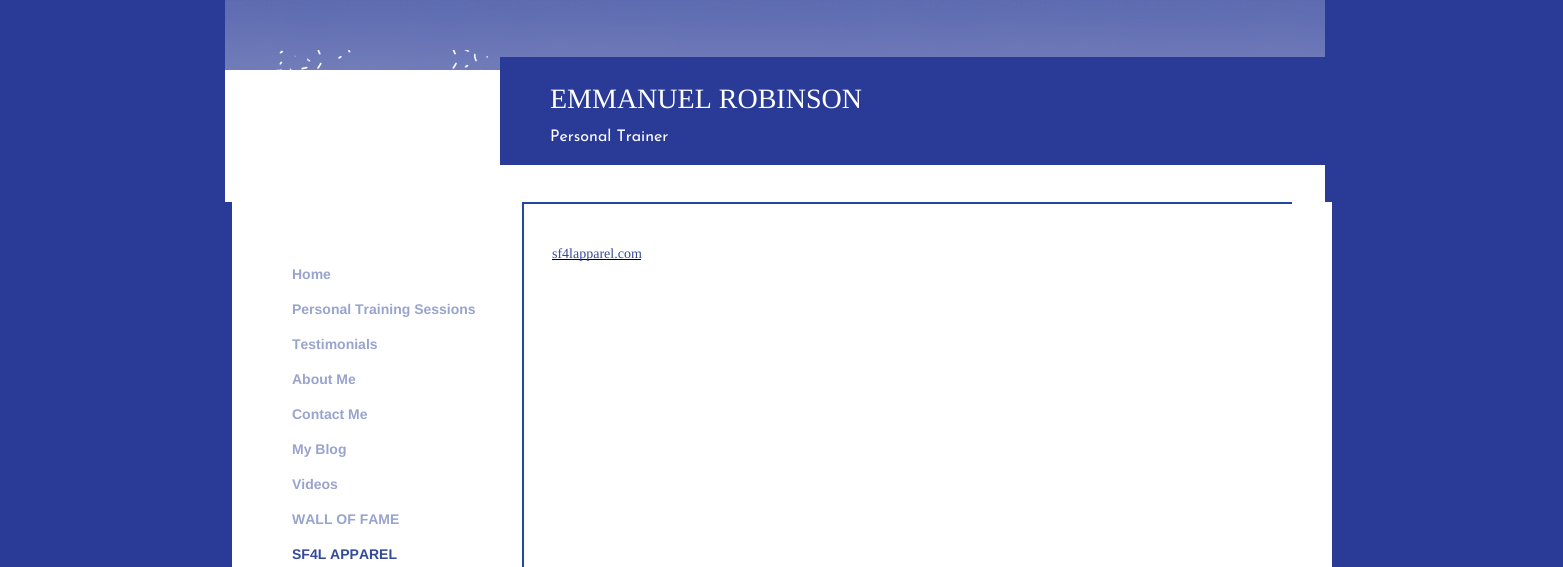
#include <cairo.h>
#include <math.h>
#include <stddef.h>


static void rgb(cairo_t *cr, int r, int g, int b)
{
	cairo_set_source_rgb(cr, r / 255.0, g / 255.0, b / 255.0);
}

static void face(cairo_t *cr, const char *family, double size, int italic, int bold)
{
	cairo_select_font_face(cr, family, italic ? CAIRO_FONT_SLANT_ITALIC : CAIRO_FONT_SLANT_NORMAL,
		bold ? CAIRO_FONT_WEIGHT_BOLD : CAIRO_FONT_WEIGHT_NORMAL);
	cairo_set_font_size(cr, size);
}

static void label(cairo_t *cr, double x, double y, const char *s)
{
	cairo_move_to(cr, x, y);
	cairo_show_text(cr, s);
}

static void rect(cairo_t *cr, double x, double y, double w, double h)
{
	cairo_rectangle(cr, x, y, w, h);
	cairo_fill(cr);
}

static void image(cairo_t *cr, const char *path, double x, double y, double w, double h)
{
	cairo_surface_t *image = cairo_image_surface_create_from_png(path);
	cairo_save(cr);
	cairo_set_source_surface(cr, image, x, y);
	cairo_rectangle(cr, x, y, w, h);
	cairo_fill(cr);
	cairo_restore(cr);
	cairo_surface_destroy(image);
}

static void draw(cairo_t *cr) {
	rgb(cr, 41, 59, 151);
	cairo_paint(cr);
	rgb(cr, 255, 255, 255);
	rect(cr, 225, 0, 1100, 202);
	image(cr, "image0.png", 225, 0, 1100, 70);
	image(cr, "image1.png", 225, 0, 1100, 70);
	image(cr, "image2.png", 276, 50, 213, 20);
	rgb(cr, 41, 59, 151);
	rect(cr, 500, 57, 825, 108);
	face(cr, "Liberation Serif", 28, 0, 0);
	rgb(cr, 255, 255, 255);
	label(cr, 550, 108, "EMMANUEL ROBINSON");
	face(cr, "Josefin Sans", 16, 0, 0);
	label(cr, 550, 141, "Personal Trainer");
	rect(cr, 524, 202, 808, 365);
	rgb(cr, 32, 72, 159);
	rect(cr, 522, 202, 770, 2);
	rect(cr, 522, 202, 2, 365);
	rgb(cr, 0, 0, 0);
	rect(cr, 552, 259, 89, 1);
	face(cr, "Liberation Serif", 14, 0, 0);
	rgb(cr, 52, 73, 154);
	label(cr, 552, 258, "sf4lapparel.com");
	rgb(cr, 255, 255, 255);
	rect(cr, 232, 202, 290, 365);
	face(cr, "Liberation Sans", 14, 0, 1);
	rgb(cr, 153, 164, 205);
	label(cr, 292, 279, "Home");
	label(cr, 292, 314, "Personal Training Sessions");
	label(cr, 292, 349, "Testimonials");
	label(cr, 292, 384, "About Me");
	label(cr, 292, 419, "Contact Me");
	label(cr, 292, 454, "My Blog");
	label(cr, 292, 489, "Videos");
	label(cr, 292, 524, "WALL OF FAME");
	rgb(cr, 52, 73, 154);
	label(cr, 292, 559, "SF4L APPAREL");
}

int main(void) {
	cairo_surface_t *surface = cairo_image_surface_create(CAIRO_FORMAT_RGB24, 1563, 567);
	cairo_t *cr = cairo_create(surface);
	cairo_font_options_t *options = cairo_font_options_create();
	cairo_font_options_set_hint_metrics(options, CAIRO_HINT_METRICS_OFF);
	cairo_font_options_set_hint_style(options, CAIRO_HINT_STYLE_NONE);
	cairo_set_font_options(cr, options);
	cairo_set_miter_limit(cr, 4);
	draw(cr);
	cairo_surface_write_to_png(surface, "render.png");
	cairo_font_options_destroy(options);
	cairo_destroy(cr);
	cairo_surface_destroy(surface);
	return 0;
}
